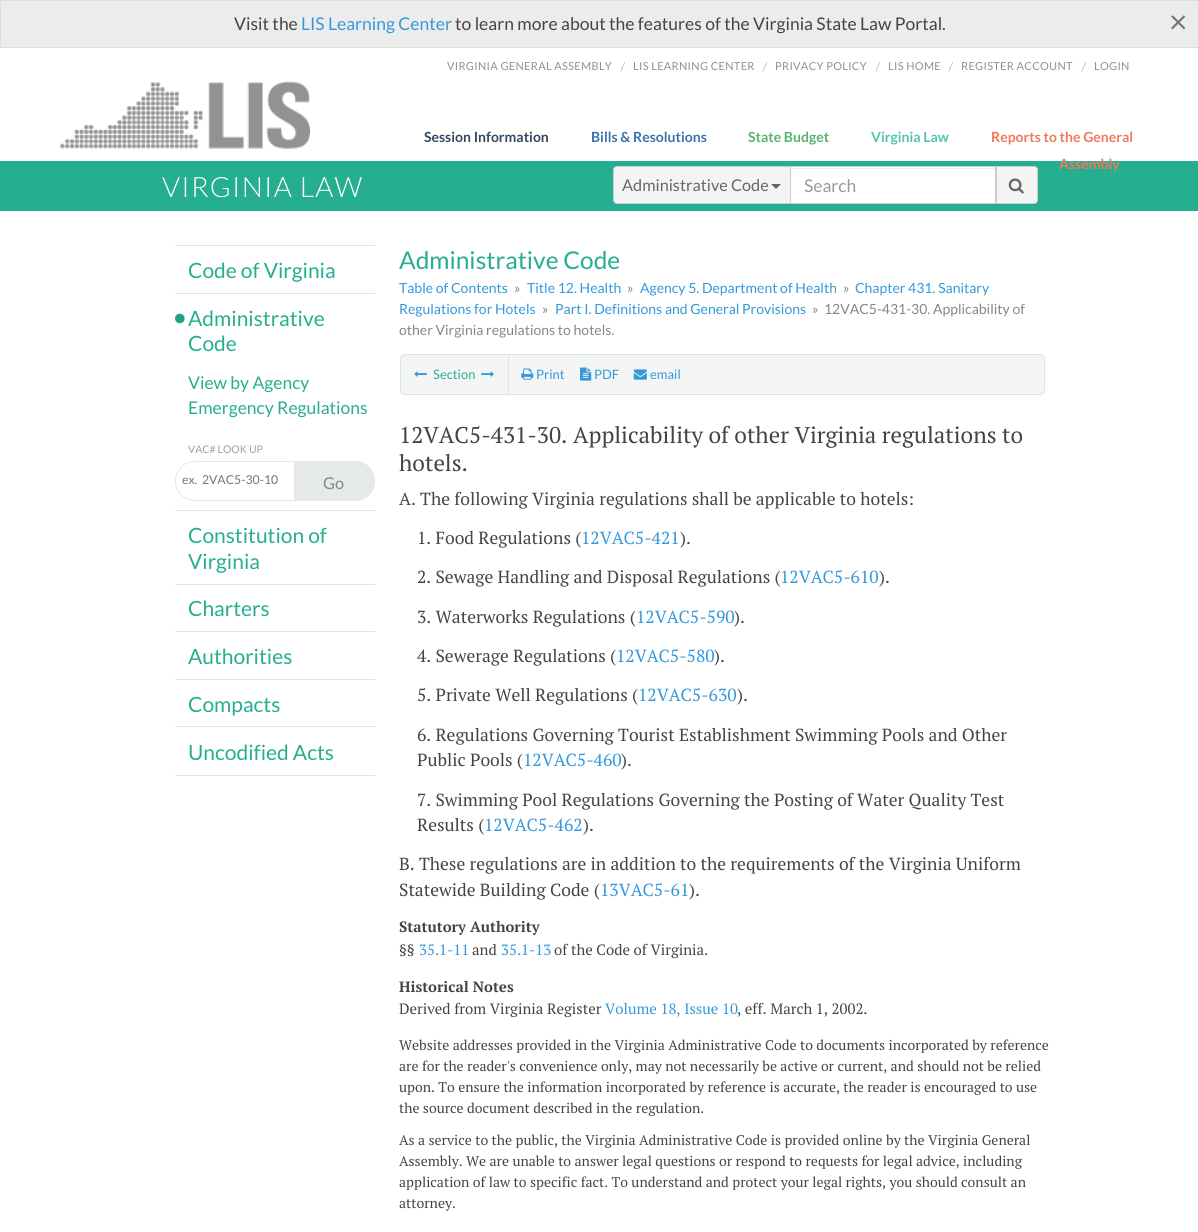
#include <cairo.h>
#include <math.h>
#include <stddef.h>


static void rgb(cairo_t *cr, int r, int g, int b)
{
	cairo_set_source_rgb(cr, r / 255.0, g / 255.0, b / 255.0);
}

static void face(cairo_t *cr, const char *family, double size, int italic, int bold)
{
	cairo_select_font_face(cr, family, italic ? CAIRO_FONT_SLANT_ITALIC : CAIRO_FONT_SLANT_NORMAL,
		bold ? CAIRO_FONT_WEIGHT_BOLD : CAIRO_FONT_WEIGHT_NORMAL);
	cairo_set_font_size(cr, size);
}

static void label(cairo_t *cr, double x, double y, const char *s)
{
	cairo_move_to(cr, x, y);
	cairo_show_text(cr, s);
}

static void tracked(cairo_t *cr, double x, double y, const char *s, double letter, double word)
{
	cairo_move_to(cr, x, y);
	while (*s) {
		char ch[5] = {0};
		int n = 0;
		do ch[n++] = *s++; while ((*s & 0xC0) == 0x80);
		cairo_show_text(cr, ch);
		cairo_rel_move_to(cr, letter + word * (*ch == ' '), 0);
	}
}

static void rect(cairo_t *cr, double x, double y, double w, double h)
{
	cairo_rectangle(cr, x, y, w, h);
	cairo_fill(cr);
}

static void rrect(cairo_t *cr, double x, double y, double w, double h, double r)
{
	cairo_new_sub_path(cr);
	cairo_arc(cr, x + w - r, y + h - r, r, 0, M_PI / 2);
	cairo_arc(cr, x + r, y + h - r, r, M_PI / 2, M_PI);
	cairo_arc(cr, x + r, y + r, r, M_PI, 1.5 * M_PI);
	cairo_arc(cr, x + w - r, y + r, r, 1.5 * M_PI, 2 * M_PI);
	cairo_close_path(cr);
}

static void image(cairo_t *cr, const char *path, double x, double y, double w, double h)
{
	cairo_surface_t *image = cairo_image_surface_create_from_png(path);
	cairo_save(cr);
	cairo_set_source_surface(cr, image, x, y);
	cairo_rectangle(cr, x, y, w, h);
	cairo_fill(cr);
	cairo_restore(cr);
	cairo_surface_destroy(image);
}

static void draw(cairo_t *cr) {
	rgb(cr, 255, 255, 255);
	cairo_paint(cr);
	rgb(cr, 236, 236, 236);
	cairo_rectangle(cr, 0.5, 0.5, 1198, 47);
	cairo_fill_preserve(cr);
	rgb(cr, 217, 224, 218);
	cairo_set_line_width(cr, 1);
	cairo_stroke(cr);
	face(cr, "Lato", 17.5, 0, 0);
	rgb(cr, 68, 68, 68);
	label(cr, 234, 30, "Visit the");
	rgb(cr, 52, 152, 219);
	label(cr, 301, 30, "LIS Learning Center");
	rgb(cr, 68, 68, 68);
	label(cr, 455, 30, "to learn more about the features of the Virginia State Law Portal.");
	face(cr, "Lato", 32, 0, 0);
	rgb(cr, 117, 117, 117);
	label(cr, 1169, 33, "×");
	face(cr, "Lato", 11, 0, 0);
	rgb(cr, 143, 144, 144);
	tracked(cr, 447, 70, "VIRGINIA GENERAL ASSEMBLY", 0.3, 0);
	face(cr, "PT Serif", 11, 0, 0);
	label(cr, 621, 70, "/");
	face(cr, "Lato", 11, 0, 0);
	tracked(cr, 633, 70, "LIS LEARNING CENTER", 0.3, 0);
	face(cr, "PT Serif", 11, 0, 0);
	label(cr, 763, 70, "/");
	face(cr, "Lato", 11, 0, 0);
	tracked(cr, 775, 70, "PRIVACY POLICY", 0.3, 0);
	face(cr, "PT Serif", 11, 0, 0);
	label(cr, 876, 70, "/");
	face(cr, "Lato", 11, 0, 0);
	tracked(cr, 888, 70, "LIS HOME", 0.3, 0);
	face(cr, "PT Serif", 11, 0, 0);
	label(cr, 949, 70, "/");
	face(cr, "Lato", 11, 0, 0);
	tracked(cr, 961, 70, "REGISTER ACCOUNT", 0.3, 0);
	face(cr, "PT Serif", 11, 0, 0);
	label(cr, 1082, 70, "/");
	face(cr, "Lato", 11, 0, 0);
	tracked(cr, 1094, 70, "LOGIN", 0.3, 0);
	image(cr, "image0.png", 60, 81, 250, 68);
	face(cr, "Lato", 14, 0, 1);
	rgb(cr, 52, 73, 94);
	label(cr, 424, 142, "Session Information");
	rgb(cr, 55, 116, 172);
	label(cr, 591, 142, "Bills & Resolutions");
	rgb(cr, 87, 179, 111);
	label(cr, 748, 142, "State Budget");
	rgb(cr, 79, 198, 172);
	label(cr, 871, 142, "Virginia Law");
	rgb(cr, 239, 121, 90);
	label(cr, 991, 142, "Reports to the General");
	rgb(cr, 38, 174, 144);
	rect(cr, 0, 161, 1198, 50);
	rgb(cr, 239, 121, 90);
	label(cr, 1059, 169, "Assembly");
	face(cr, "Lato Light", 28, 0, 0);
	rgb(cr, 255, 255, 255);
	tracked(cr, 162, 197, "VIRGINIA LAW", 1.25, 0);
	rect(cr, 791, 167, 204, 36);
	rgb(cr, 236, 236, 236);
	rect(cr, 791, 168, 204, 1);
	cairo_rectangle(cr, 790.5, 166.5, 205, 37);
	rgb(cr, 204, 204, 204);
	cairo_stroke(cr);
	rgb(cr, 243, 245, 245);
	cairo_new_path(cr);
	cairo_move_to(cr, 617, 166.5);
	cairo_line_to(cr, 790.5, 166.5);
	cairo_line_to(cr, 790.5, 203.5);
	cairo_line_to(cr, 617, 203.5);
	cairo_curve_to(cr, 615, 203.5, 613.5, 202, 613.5, 200);
	cairo_line_to(cr, 613.5, 170);
	cairo_curve_to(cr, 613.5, 168, 615, 166.5, 617, 166.5);
	cairo_close_path(cr);
	cairo_fill_preserve(cr);
	rgb(cr, 204, 204, 204);
	cairo_stroke(cr);
	face(cr, "Lato", 16.25, 0, 0);
	rgb(cr, 102, 102, 102);
	label(cr, 622, 191, "Administrative Code");
	cairo_new_path(cr);
	cairo_move_to(cr, 771, 184);
	cairo_line_to(cr, 781, 184);
	cairo_line_to(cr, 776, 189);
	cairo_close_path(cr);
	cairo_fill(cr);
	face(cr, "Lato", 17.5, 0, 0);
	rgb(cr, 153, 153, 153);
	label(cr, 804, 192, "Search");
	rgb(cr, 243, 245, 245);
	cairo_new_path(cr);
	cairo_move_to(cr, 996.5, 166.5);
	cairo_line_to(cr, 1034, 166.5);
	cairo_curve_to(cr, 1036, 166.5, 1037.5, 168, 1037.5, 170);
	cairo_line_to(cr, 1037.5, 200);
	cairo_curve_to(cr, 1037.5, 202, 1036, 203.5, 1034, 203.5);
	cairo_line_to(cr, 996.5, 203.5);
	cairo_close_path(cr);
	cairo_fill_preserve(cr);
	rgb(cr, 204, 204, 204);
	cairo_stroke(cr);
	image(cr, "image1.png", 1008, 178, 16, 16);
	rgb(cr, 222, 226, 227);
	rect(cr, 175, 245, 200, 1);
	face(cr, "Lato", 21, 0, 0);
	rgb(cr, 38, 174, 144);
	label(cr, 188, 278, "Code of Virginia");
	rgb(cr, 222, 226, 227);
	rect(cr, 175, 293, 200, 1);
	image(cr, "image2.png", 175, 313, 10, 11);
	rgb(cr, 38, 174, 144);
	label(cr, 188, 326, "Administrative");
	label(cr, 188, 351, "Code");
	face(cr, "Lato", 17.5, 0, 0);
	label(cr, 188, 389, "View by Agency");
	label(cr, 188, 414, "Emergency Regulations");
	face(cr, "Lato", 10.5, 0, 0);
	rgb(cr, 157, 161, 163);
	label(cr, 188, 453, "VAC# LOOK UP");
	rrect(cr, 175.5, 461.5, 199, 39, 19.5);
	rgb(cr, 229, 233, 233);
	cairo_stroke(cr);
	face(cr, "Lato", 12.25, 0, 0);
	rgb(cr, 117, 117, 117);
	label(cr, 182, 484, "ex.  2VAC5-30-10");
	rgb(cr, 229, 233, 233);
	cairo_new_path(cr);
	cairo_move_to(cr, 294, 461);
	cairo_line_to(cr, 355, 461);
	cairo_curve_to(cr, 366, 461, 375, 470, 375, 481);
	cairo_curve_to(cr, 375, 492, 366, 501, 355, 501);
	cairo_line_to(cr, 294, 501);
	cairo_close_path(cr);
	cairo_fill(cr);
	face(cr, "Lato", 16.25, 0, 0);
	rgb(cr, 130, 135, 139);
	label(cr, 323, 489, "Go");
	rgb(cr, 222, 226, 227);
	rect(cr, 175, 510, 200, 1);
	face(cr, "Lato", 21, 0, 0);
	rgb(cr, 38, 174, 144);
	label(cr, 188, 543, "Constitution of");
	label(cr, 188, 569, "Virginia");
	rgb(cr, 222, 226, 227);
	rect(cr, 175, 584, 200, 1);
	rgb(cr, 38, 174, 144);
	label(cr, 188, 616, "Charters");
	rgb(cr, 222, 226, 227);
	rect(cr, 175, 631, 200, 1);
	rgb(cr, 38, 174, 144);
	label(cr, 188, 664, "Authorities");
	rgb(cr, 222, 226, 227);
	rect(cr, 175, 679, 200, 1);
	rgb(cr, 38, 174, 144);
	label(cr, 188, 712, "Compacts");
	rgb(cr, 222, 226, 227);
	rect(cr, 175, 726, 200, 1);
	rect(cr, 175, 775, 200, 1);
	rgb(cr, 38, 174, 144);
	label(cr, 188, 760, "Uncodified Acts");
	face(cr, "Lato", 24.5, 0, 0);
	label(cr, 399, 269, "Administrative Code");
	face(cr, "Lato", 14, 0, 0);
	rgb(cr, 52, 152, 219);
	label(cr, 399, 293, "Table of Contents");
	rgb(cr, 130, 135, 139);
	label(cr, 514, 293, "»");
	rgb(cr, 52, 152, 219);
	label(cr, 527, 293, "Title 12. Health");
	rgb(cr, 130, 135, 139);
	label(cr, 627, 293, "»");
	rgb(cr, 52, 152, 219);
	label(cr, 640, 293, "Agency 5. Department of Health");
	rgb(cr, 130, 135, 139);
	label(cr, 843, 293, "»");
	rgb(cr, 52, 152, 219);
	label(cr, 855, 293, "Chapter 431. Sanitary");
	label(cr, 399, 314, "Regulations for Hotels");
	rgb(cr, 130, 135, 139);
	label(cr, 542, 314, "»");
	rgb(cr, 52, 152, 219);
	label(cr, 555, 314, "Part I. Definitions and General Provisions");
	rgb(cr, 130, 135, 139);
	label(cr, 812, 314, "»");
	label(cr, 824, 314, "12VAC5-431-30. Applicability of");
	label(cr, 399, 335, "other Virginia regulations to hotels.");
	rgb(cr, 244, 245, 245);
	rrect(cr, 400.5, 354.5, 644, 40, 4.5);
	cairo_fill_preserve(cr);
	rgb(cr, 222, 226, 227);
	cairo_stroke(cr);
	rect(cr, 508, 355, 1, 39);
	image(cr, "image3.png", 414, 371, 13, 6);
	face(cr, "Lato", 13, 0, 0);
	rgb(cr, 38, 174, 144);
	label(cr, 433, 379, "Section");
	image(cr, "image4.png", 481, 371, 13, 6);
	image(cr, "image5.png", 521, 368, 13, 12);
	rgb(cr, 52, 152, 219);
	label(cr, 536, 379, "Print");
	image(cr, "image6.png", 580, 367, 12, 14);
	label(cr, 594, 379, "PDF");
	image(cr, "image7.png", 633, 369, 14, 11);
	label(cr, 650, 379, "email");
	face(cr, "PT Serif", 22.75, 0, 0);
	rgb(cr, 68, 68, 68);
	label(cr, 399, 443, "12VAC5-431-30. Applicability of other Virginia regulations to");
	label(cr, 399, 471, "hotels.");
	face(cr, "PT Serif", 17.5, 0, 0);
	label(cr, 399, 505, "A. The following Virginia regulations shall be applicable to hotels:");
	label(cr, 417, 544, "1. Food Regulations (");
	rgb(cr, 52, 152, 219);
	label(cr, 581, 544, "12VAC5-421");
	rgb(cr, 68, 68, 68);
	label(cr, 680, 544, ").");
	label(cr, 417, 583, "2. Sewage Handling and Disposal Regulations (");
	rgb(cr, 52, 152, 219);
	label(cr, 780, 583, "12VAC5-610");
	rgb(cr, 68, 68, 68);
	label(cr, 879, 583, ").");
	label(cr, 417, 623, "3. Waterworks Regulations (");
	rgb(cr, 52, 152, 219);
	label(cr, 636, 623, "12VAC5-590");
	rgb(cr, 68, 68, 68);
	label(cr, 734, 623, ").");
	label(cr, 417, 662, "4. Sewerage Regulations (");
	rgb(cr, 52, 152, 219);
	label(cr, 616, 662, "12VAC5-580");
	rgb(cr, 68, 68, 68);
	label(cr, 714, 662, ").");
	label(cr, 417, 701, "5. Private Well Regulations (");
	rgb(cr, 52, 152, 219);
	label(cr, 638, 701, "12VAC5-630");
	rgb(cr, 68, 68, 68);
	label(cr, 737, 701, ").");
	label(cr, 417, 741, "6. Regulations Governing Tourist Establishment Swimming Pools and Other");
	label(cr, 417, 766, "Public Pools (");
	rgb(cr, 52, 152, 219);
	label(cr, 523, 766, "12VAC5-460");
	rgb(cr, 68, 68, 68);
	label(cr, 621, 766, ").");
	label(cr, 417, 806, "7. Swimming Pool Regulations Governing the Posting of Water Quality Test");
	label(cr, 417, 831, "Results (");
	rgb(cr, 52, 152, 219);
	label(cr, 484, 831, "12VAC5-462");
	rgb(cr, 68, 68, 68);
	label(cr, 583, 831, ").");
	label(cr, 399, 870, "B. These regulations are in addition to the requirements of the Virginia Uniform");
	label(cr, 399, 896, "Statewide Building Code (");
	rgb(cr, 52, 152, 219);
	label(cr, 600, 896, "13VAC5-61");
	rgb(cr, 68, 68, 68);
	label(cr, 689, 896, ").");
	face(cr, "PT Serif", 14.9, 0, 1);
	label(cr, 399, 932, "Statutory Authority");
	face(cr, "PT Serif", 14.9, 0, 0);
	label(cr, 399, 955, "§§");
	rgb(cr, 52, 152, 219);
	label(cr, 419, 955, "35.1-11");
	rgb(cr, 68, 68, 68);
	label(cr, 472, 955, "and");
	rgb(cr, 52, 152, 219);
	label(cr, 501, 955, "35.1-13");
	rgb(cr, 68, 68, 68);
	label(cr, 554, 955, "of the Code of Virginia.");
	face(cr, "PT Serif", 14.9, 0, 1);
	label(cr, 399, 992, "Historical Notes");
	face(cr, "PT Serif", 14.9, 0, 0);
	label(cr, 399, 1014, "Derived from Virginia Register");
	rgb(cr, 52, 152, 219);
	label(cr, 605, 1014, "Volume 18, Issue 10");
	rgb(cr, 68, 68, 68);
	label(cr, 737, 1014, ", eff. March 1, 2002.");
	face(cr, "PT Serif", 14, 0, 0);
	label(cr, 399, 1050, "Website addresses provided in the Virginia Administrative Code to documents incorporated by reference");
	label(cr, 399, 1071, "are for the reader's convenience only, may not necessarily be active or current, and should not be relied");
	label(cr, 399, 1092, "upon. To ensure the information incorporated by reference is accurate, the reader is encouraged to use");
	label(cr, 399, 1113, "the source document described in the regulation.");
	label(cr, 399, 1145, "As a service to the public, the Virginia Administrative Code is provided online by the Virginia General");
	label(cr, 399, 1166, "Assembly. We are unable to answer legal questions or respond to requests for legal advice, including");
	label(cr, 399, 1187, "application of law to specific fact. To understand and protect your legal rights, you should consult an");
	label(cr, 399, 1208, "attorney.");
}

int main(void) {
	cairo_surface_t *surface = cairo_image_surface_create(CAIRO_FORMAT_RGB24, 1198, 1232);
	cairo_t *cr = cairo_create(surface);
	cairo_font_options_t *options = cairo_font_options_create();
	cairo_font_options_set_hint_metrics(options, CAIRO_HINT_METRICS_OFF);
	cairo_font_options_set_hint_style(options, CAIRO_HINT_STYLE_NONE);
	cairo_set_font_options(cr, options);
	cairo_set_miter_limit(cr, 4);
	draw(cr);
	cairo_surface_write_to_png(surface, "render.png");
	cairo_font_options_destroy(options);
	cairo_destroy(cr);
	cairo_surface_destroy(surface);
	return 0;
}
